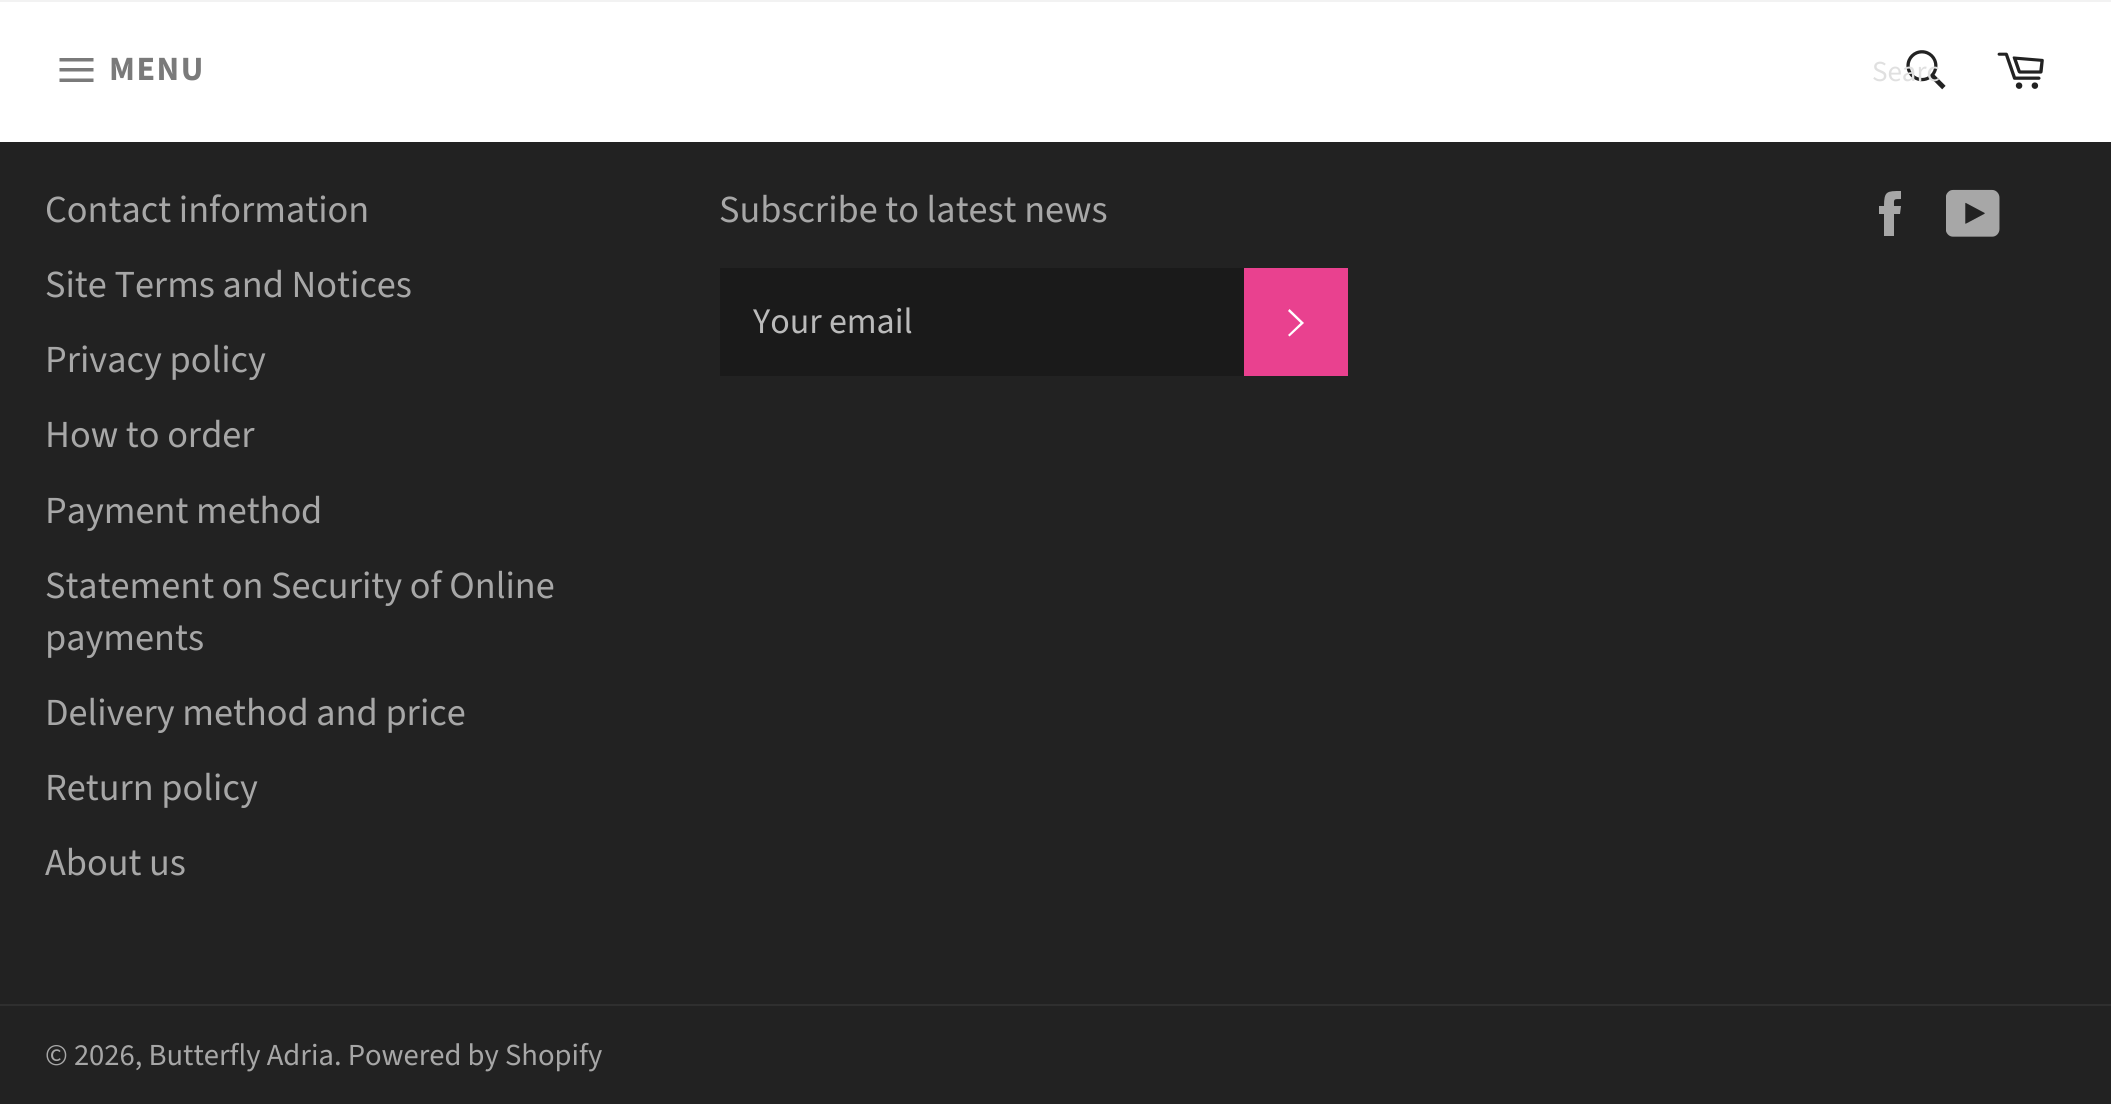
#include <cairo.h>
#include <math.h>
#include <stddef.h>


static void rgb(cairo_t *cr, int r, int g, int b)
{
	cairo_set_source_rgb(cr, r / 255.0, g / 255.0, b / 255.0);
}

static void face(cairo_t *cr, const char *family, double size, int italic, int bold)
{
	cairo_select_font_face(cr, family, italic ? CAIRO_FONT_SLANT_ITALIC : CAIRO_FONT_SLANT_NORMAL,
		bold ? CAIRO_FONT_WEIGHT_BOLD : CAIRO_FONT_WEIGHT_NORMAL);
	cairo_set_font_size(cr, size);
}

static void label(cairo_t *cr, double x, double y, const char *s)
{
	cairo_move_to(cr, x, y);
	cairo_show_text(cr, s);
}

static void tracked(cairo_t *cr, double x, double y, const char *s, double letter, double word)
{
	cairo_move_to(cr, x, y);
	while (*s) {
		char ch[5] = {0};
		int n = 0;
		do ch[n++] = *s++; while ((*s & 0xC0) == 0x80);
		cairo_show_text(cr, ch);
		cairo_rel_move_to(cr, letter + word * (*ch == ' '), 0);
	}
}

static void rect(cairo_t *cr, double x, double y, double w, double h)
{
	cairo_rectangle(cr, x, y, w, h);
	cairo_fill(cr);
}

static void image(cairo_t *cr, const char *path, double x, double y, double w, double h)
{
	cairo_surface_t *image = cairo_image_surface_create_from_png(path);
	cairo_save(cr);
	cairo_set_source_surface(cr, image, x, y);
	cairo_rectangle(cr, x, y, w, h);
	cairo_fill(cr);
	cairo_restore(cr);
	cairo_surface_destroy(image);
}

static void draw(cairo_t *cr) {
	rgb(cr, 34, 34, 34);
	cairo_paint(cr);
	rgb(cr, 255, 255, 255);
	rect(cr, 0, 2, 2111, 140);
	rgb(cr, 242, 242, 242);
	rect(cr, 0, 0, 2111, 2);
	rgb(cr, 122, 122, 122);
	cairo_new_path(cr);
	cairo_move_to(cr, 59.5, 68);
	cairo_line_to(cr, 93.5, 68);
	cairo_line_to(cr, 93.5, 71.5);
	cairo_line_to(cr, 59.5, 71.5);
	cairo_close_path(cr);
	cairo_move_to(cr, 59.5, 58);
	cairo_line_to(cr, 93.5, 58);
	cairo_line_to(cr, 93.5, 61.5);
	cairo_line_to(cr, 59.5, 61.5);
	cairo_close_path(cr);
	cairo_move_to(cr, 59.5, 78.5);
	cairo_line_to(cr, 93.5, 78.5);
	cairo_line_to(cr, 93.5, 82);
	cairo_line_to(cr, 59.5, 82);
	cairo_close_path(cr);
	cairo_fill(cr);
	face(cr, "Source Sans Pro", 34, 0, 1);
	tracked(cr, 109, 80, "MENU", 1.5, 0);
	image(cr, "image0.png", 1906, 50, 40, 40);
	face(cr, "Source Sans Pro", 29, 0, 0);
	rgb(cr, 224, 224, 224);
	label(cr, 1872, 81, "Searc");
	image(cr, "image1.png", 1997, 52, 47, 37);
	face(cr, "Source Sans Pro", 38.25, 0, 0);
	rgb(cr, 167, 167, 167);
	label(cr, 45, 222, "Contact information");
	label(cr, 45, 297, "Site Terms and Notices");
	label(cr, 45, 372, "Privacy policy");
	label(cr, 45, 447, "How to order");
	label(cr, 45, 523, "Payment method");
	label(cr, 45, 598, "Statement on Security of Online");
	label(cr, 45, 650, "payments");
	label(cr, 45, 725, "Delivery method and price");
	label(cr, 45, 800, "Return policy");
	label(cr, 45, 875, "About us");
	label(cr, 719, 222, "Subscribe to latest news");
	rgb(cr, 26, 26, 26);
	rect(cr, 720, 268, 524, 108);
	face(cr, "Source Sans Pro", 36, 0, 0);
	rgb(cr, 186, 186, 186);
	label(cr, 753, 333, "Your email");
	rgb(cr, 233, 65, 143);
	rect(cr, 1244, 268, 104, 108);
	rgb(cr, 255, 255, 255);
	cairo_new_path(cr);
	cairo_move_to(cr, 1288, 311);
	cairo_line_to(cr, 1289.5, 309);
	cairo_line_to(cr, 1304, 323);
	cairo_line_to(cr, 1289.5, 336.5);
	cairo_line_to(cr, 1288, 335);
	cairo_line_to(cr, 1300.5, 323);
	cairo_close_path(cr);
	cairo_fill(cr);
	rgb(cr, 167, 167, 167);
	cairo_new_path(cr);
	cairo_move_to(cr, 1894, 206);
	cairo_curve_to(cr, 1894, 199, 1893, 199, 1901, 199);
	cairo_line_to(cr, 1901, 191);
	cairo_curve_to(cr, 1887, 191, 1884, 191, 1884, 206);
	cairo_line_to(cr, 1879, 206);
	cairo_line_to(cr, 1879, 214);
	cairo_line_to(cr, 1884, 214);
	cairo_line_to(cr, 1884, 236);
	cairo_line_to(cr, 1894, 236);
	cairo_line_to(cr, 1894, 214);
	cairo_line_to(cr, 1900, 214);
	cairo_line_to(cr, 1901, 206);
	cairo_close_path(cr);
	cairo_fill(cr);
	image(cr, "image2.png", 1946, 189, 54, 48);
	rgb(cr, 47, 47, 47);
	rect(cr, 0, 1004, 2111, 2);
	face(cr, "Source Sans Pro", 30.6, 0, 0);
	rgb(cr, 167, 167, 167);
	label(cr, 45, 1065, "© 2026, Butterfly Adria. Powered by Shopify");
}

int main(void) {
	cairo_surface_t *surface = cairo_image_surface_create(CAIRO_FORMAT_RGB24, 2111, 1104);
	cairo_t *cr = cairo_create(surface);
	cairo_font_options_t *options = cairo_font_options_create();
	cairo_font_options_set_hint_metrics(options, CAIRO_HINT_METRICS_OFF);
	cairo_font_options_set_hint_style(options, CAIRO_HINT_STYLE_NONE);
	cairo_set_font_options(cr, options);
	cairo_set_miter_limit(cr, 4);
	draw(cr);
	cairo_surface_write_to_png(surface, "render.png");
	cairo_font_options_destroy(options);
	cairo_destroy(cr);
	cairo_surface_destroy(surface);
	return 0;
}
